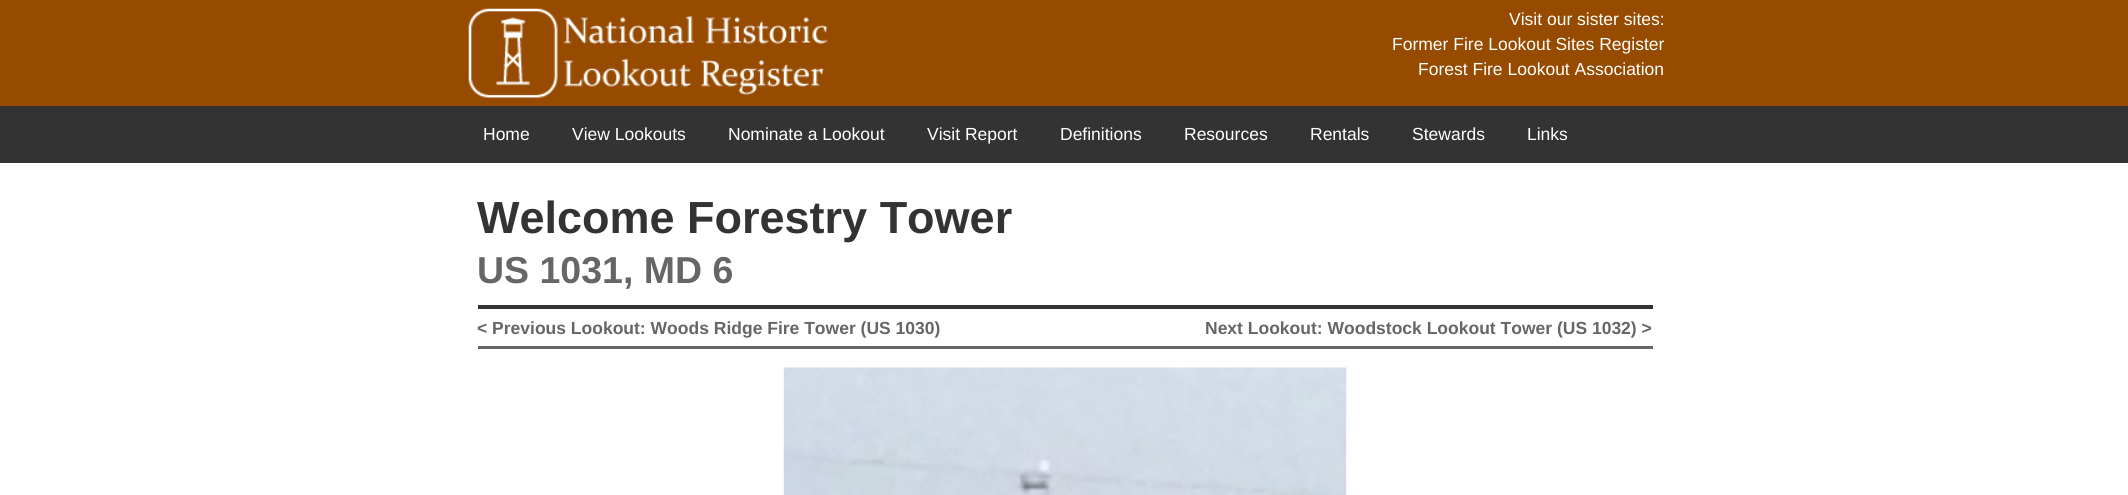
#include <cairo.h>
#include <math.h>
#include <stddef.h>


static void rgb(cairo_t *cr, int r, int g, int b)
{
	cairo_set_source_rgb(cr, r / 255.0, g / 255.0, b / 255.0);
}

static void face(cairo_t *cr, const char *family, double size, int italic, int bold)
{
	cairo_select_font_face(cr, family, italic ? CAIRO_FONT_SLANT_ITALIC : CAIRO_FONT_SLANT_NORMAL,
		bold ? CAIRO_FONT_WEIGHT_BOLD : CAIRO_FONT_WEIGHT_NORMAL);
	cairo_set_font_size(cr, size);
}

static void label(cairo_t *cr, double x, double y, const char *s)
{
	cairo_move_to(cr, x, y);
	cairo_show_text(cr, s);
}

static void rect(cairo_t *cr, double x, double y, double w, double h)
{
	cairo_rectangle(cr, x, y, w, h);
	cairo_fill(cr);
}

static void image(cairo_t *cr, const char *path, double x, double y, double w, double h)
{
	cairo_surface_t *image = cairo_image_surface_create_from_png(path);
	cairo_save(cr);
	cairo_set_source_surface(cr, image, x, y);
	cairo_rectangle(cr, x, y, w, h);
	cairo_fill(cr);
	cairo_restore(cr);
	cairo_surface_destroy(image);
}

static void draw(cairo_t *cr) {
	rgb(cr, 150, 75, 0);
	cairo_paint(cr);
	image(cr, "image0.png", 468, 8, 360, 90);
	face(cr, "Liberation Sans", 17.5, 0, 0);
	rgb(cr, 255, 255, 255);
	label(cr, 1509, 25, "Visit our sister sites:");
	label(cr, 1392, 50, "Former Fire Lookout Sites Register");
	label(cr, 1418, 75, "Forest Fire Lookout Association");
	rgb(cr, 51, 51, 51);
	rect(cr, 0, 106, 2128, 57);
	rgb(cr, 255, 255, 255);
	label(cr, 483, 140, "Home");
	label(cr, 572, 140, "View Lookouts");
	label(cr, 728, 140, "Nominate a Lookout");
	label(cr, 927, 140, "Visit Report");
	label(cr, 1060, 140, "Definitions");
	label(cr, 1184, 140, "Resources");
	label(cr, 1310, 140, "Rentals");
	label(cr, 1412, 140, "Stewards");
	label(cr, 1527, 140, "Links");
	rect(cr, 0, 163, 2128, 332);
	face(cr, "Liberation Sans", 45, 0, 1);
	rgb(cr, 51, 51, 51);
	label(cr, 477, 233, "Welcome Forestry Tower");
	rect(cr, 478, 305, 1175, 4);
	face(cr, "Liberation Sans", 37.5, 0, 1);
	rgb(cr, 102, 102, 102);
	label(cr, 477, 283, "US 1031, MD 6");
	rect(cr, 478, 346, 1175, 3);
	face(cr, "Liberation Sans", 17.5, 0, 1);
	label(cr, 477, 334, "< Previous Lookout: Woods Ridge Fire Tower (US 1030)");
	label(cr, 1205, 334, "Next Lookout: Woodstock Lookout Tower (US 1032) >");
	image(cr, "image1.png", 783, 367, 564, 128);
}

int main(void) {
	cairo_surface_t *surface = cairo_image_surface_create(CAIRO_FORMAT_RGB24, 2128, 495);
	cairo_t *cr = cairo_create(surface);
	cairo_font_options_t *options = cairo_font_options_create();
	cairo_font_options_set_hint_metrics(options, CAIRO_HINT_METRICS_OFF);
	cairo_font_options_set_hint_style(options, CAIRO_HINT_STYLE_NONE);
	cairo_set_font_options(cr, options);
	cairo_set_miter_limit(cr, 4);
	draw(cr);
	cairo_surface_write_to_png(surface, "render.png");
	cairo_font_options_destroy(options);
	cairo_destroy(cr);
	cairo_surface_destroy(surface);
	return 0;
}
